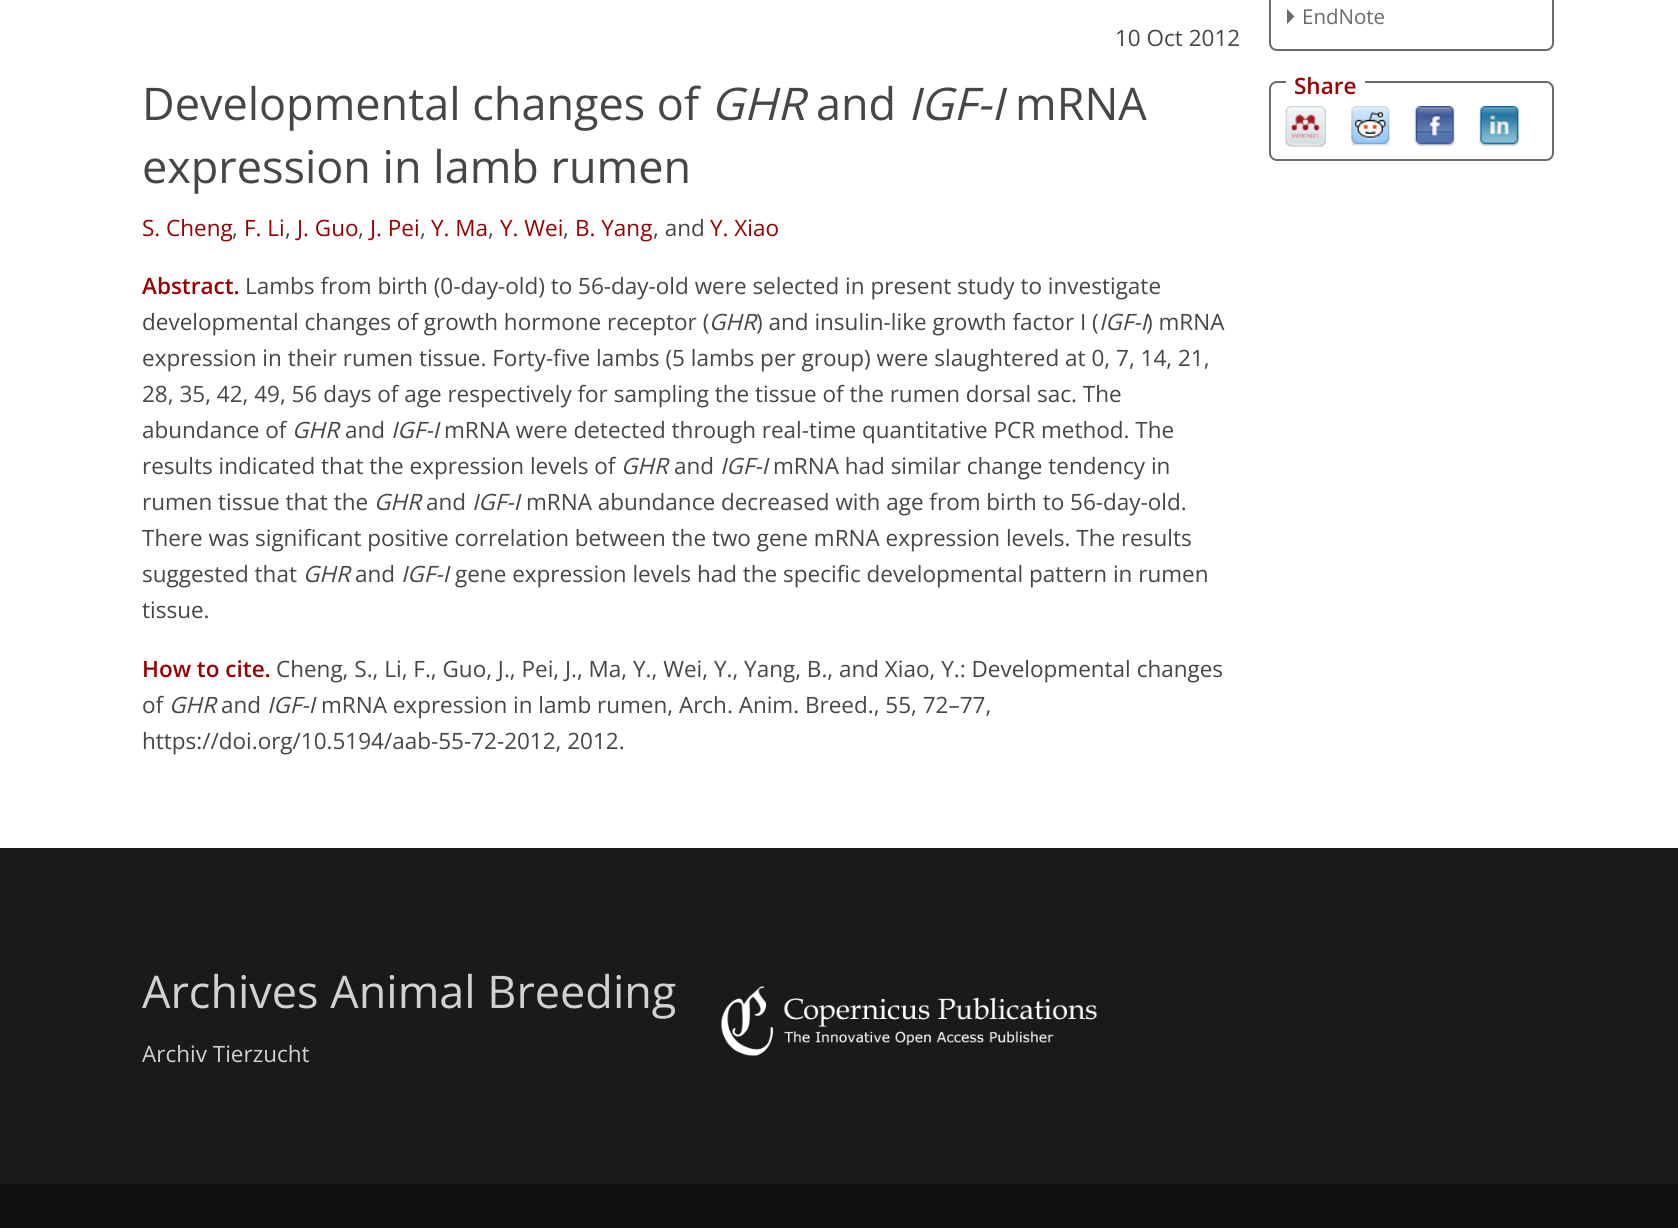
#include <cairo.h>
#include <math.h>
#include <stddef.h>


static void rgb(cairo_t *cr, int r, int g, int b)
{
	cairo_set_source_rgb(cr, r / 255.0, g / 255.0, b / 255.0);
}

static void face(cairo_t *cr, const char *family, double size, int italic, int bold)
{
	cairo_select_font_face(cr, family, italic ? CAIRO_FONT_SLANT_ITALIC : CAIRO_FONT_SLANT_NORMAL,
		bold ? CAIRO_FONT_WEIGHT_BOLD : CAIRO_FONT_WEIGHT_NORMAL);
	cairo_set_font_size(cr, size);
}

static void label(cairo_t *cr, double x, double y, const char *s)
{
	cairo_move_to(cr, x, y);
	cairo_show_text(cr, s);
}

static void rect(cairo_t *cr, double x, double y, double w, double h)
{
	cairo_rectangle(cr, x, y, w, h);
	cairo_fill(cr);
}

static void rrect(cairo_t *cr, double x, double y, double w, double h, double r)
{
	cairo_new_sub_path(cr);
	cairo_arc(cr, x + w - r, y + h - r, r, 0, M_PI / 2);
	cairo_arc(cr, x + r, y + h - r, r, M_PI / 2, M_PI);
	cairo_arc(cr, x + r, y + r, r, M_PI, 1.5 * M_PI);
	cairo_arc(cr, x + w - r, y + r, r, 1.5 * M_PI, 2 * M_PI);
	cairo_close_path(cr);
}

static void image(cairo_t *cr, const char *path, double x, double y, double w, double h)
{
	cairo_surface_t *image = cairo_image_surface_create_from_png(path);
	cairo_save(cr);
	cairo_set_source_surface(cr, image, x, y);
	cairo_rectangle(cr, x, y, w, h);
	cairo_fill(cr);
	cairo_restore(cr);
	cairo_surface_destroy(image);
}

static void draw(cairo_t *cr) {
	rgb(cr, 255, 255, 255);
	cairo_paint(cr);
	face(cr, "Open Sans", 22.5, 0, 0);
	rgb(cr, 70, 70, 70);
	label(cr, 1115, 46, "10 Oct 2012");
	face(cr, "Open Sans", 45, 0, 0);
	label(cr, 142, 120, "Developmental changes of");
	face(cr, "Open Sans", 45, 1, 0);
	label(cr, 711, 120, "GHR");
	face(cr, "Open Sans", 45, 0, 0);
	label(cr, 816, 120, "and");
	face(cr, "Open Sans", 45, 1, 0);
	label(cr, 908, 120, "IGF-I");
	face(cr, "Open Sans", 45, 0, 0);
	label(cr, 1015, 120, "mRNA");
	label(cr, 142, 183, "expression in lamb rumen");
	face(cr, "Open Sans", 22.5, 0, 0);
	rgb(cr, 153, 0, 0);
	label(cr, 142, 236, "S. Cheng");
	rgb(cr, 70, 70, 70);
	label(cr, 232, 236, ",");
	rgb(cr, 153, 0, 0);
	label(cr, 244, 236, "F. Li");
	rgb(cr, 70, 70, 70);
	label(cr, 285, 236, ",");
	rgb(cr, 153, 0, 0);
	label(cr, 297, 236, "J. Guo");
	rgb(cr, 70, 70, 70);
	label(cr, 358, 236, ",");
	rgb(cr, 153, 0, 0);
	label(cr, 370, 236, "J. Pei");
	rgb(cr, 70, 70, 70);
	label(cr, 420, 236, ",");
	rgb(cr, 153, 0, 0);
	label(cr, 431, 236, "Y. Ma");
	rgb(cr, 70, 70, 70);
	label(cr, 488, 236, ",");
	rgb(cr, 153, 0, 0);
	label(cr, 500, 236, "Y. Wei");
	rgb(cr, 70, 70, 70);
	label(cr, 563, 236, ",");
	rgb(cr, 153, 0, 0);
	label(cr, 575, 236, "B. Yang");
	rgb(cr, 70, 70, 70);
	label(cr, 653, 236, ", and");
	rgb(cr, 153, 0, 0);
	label(cr, 710, 236, "Y. Xiao");
	face(cr, "Open Sans SemiBold", 22.5, 0, 0);
	label(cr, 142, 294, "Abstract.");
	face(cr, "Open Sans", 22.5, 0, 0);
	rgb(cr, 70, 70, 70);
	label(cr, 245, 294, "Lambs from birth (0-day-old) to 56-day-old were selected in present study to investigate");
	label(cr, 142, 330, "developmental changes of growth hormone receptor (");
	face(cr, "Open Sans", 22.5, 1, 0);
	label(cr, 709, 330, "GHR");
	face(cr, "Open Sans", 22.5, 0, 0);
	label(cr, 756, 330, ") and insulin-like growth factor I (");
	face(cr, "Open Sans", 22.5, 1, 0);
	label(cr, 1099, 330, "IGF-I");
	face(cr, "Open Sans", 22.5, 0, 0);
	label(cr, 1146, 330, ") mRNA");
	label(cr, 142, 366, "expression in their rumen tissue. Forty-five lambs (5 lambs per group) were slaughtered at 0, 7, 14, 21,");
	label(cr, 142, 402, "28, 35, 42, 49, 56 days of age respectively for sampling the tissue of the rumen dorsal sac. The");
	label(cr, 142, 438, "abundance of");
	face(cr, "Open Sans", 22.5, 1, 0);
	label(cr, 292, 438, "GHR");
	face(cr, "Open Sans", 22.5, 0, 0);
	label(cr, 345, 438, "and");
	face(cr, "Open Sans", 22.5, 1, 0);
	label(cr, 391, 438, "IGF-I");
	face(cr, "Open Sans", 22.5, 0, 0);
	label(cr, 444, 438, "mRNA were detected through real-time quantitative PCR method. The");
	label(cr, 142, 474, "results indicated that the expression levels of");
	face(cr, "Open Sans", 22.5, 1, 0);
	label(cr, 621, 474, "GHR");
	face(cr, "Open Sans", 22.5, 0, 0);
	label(cr, 674, 474, "and");
	face(cr, "Open Sans", 22.5, 1, 0);
	label(cr, 720, 474, "IGF-I");
	face(cr, "Open Sans", 22.5, 0, 0);
	label(cr, 773, 474, "mRNA had similar change tendency in");
	label(cr, 142, 510, "rumen tissue that the");
	face(cr, "Open Sans", 22.5, 1, 0);
	label(cr, 374, 510, "GHR");
	face(cr, "Open Sans", 22.5, 0, 0);
	label(cr, 426, 510, "and");
	face(cr, "Open Sans", 22.5, 1, 0);
	label(cr, 472, 510, "IGF-I");
	face(cr, "Open Sans", 22.5, 0, 0);
	label(cr, 526, 510, "mRNA abundance decreased with age from birth to 56-day-old.");
	label(cr, 142, 546, "There was significant positive correlation between the two gene mRNA expression levels. The results");
	label(cr, 142, 582, "suggested that");
	face(cr, "Open Sans", 22.5, 1, 0);
	label(cr, 303, 582, "GHR");
	face(cr, "Open Sans", 22.5, 0, 0);
	label(cr, 355, 582, "and");
	face(cr, "Open Sans", 22.5, 1, 0);
	label(cr, 401, 582, "IGF-I");
	face(cr, "Open Sans", 22.5, 0, 0);
	label(cr, 455, 582, "gene expression levels had the specific developmental pattern in rumen");
	label(cr, 142, 618, "tissue.");
	face(cr, "Open Sans SemiBold", 22.5, 0, 0);
	rgb(cr, 153, 0, 0);
	label(cr, 142, 677, "How to cite.");
	face(cr, "Open Sans", 22.5, 0, 0);
	rgb(cr, 70, 70, 70);
	label(cr, 276, 677, "Cheng, S., Li, F., Guo, J., Pei, J., Ma, Y., Wei, Y., Yang, B., and Xiao, Y.: Developmental changes");
	label(cr, 142, 713, "of");
	face(cr, "Open Sans", 22.5, 1, 0);
	label(cr, 169, 713, "GHR");
	face(cr, "Open Sans", 22.5, 0, 0);
	label(cr, 221, 713, "and");
	face(cr, "Open Sans", 22.5, 1, 0);
	label(cr, 267, 713, "IGF-I");
	face(cr, "Open Sans", 22.5, 0, 0);
	label(cr, 321, 713, "mRNA expression in lamb rumen, Arch. Anim. Breed., 55, 72–77,");
	label(cr, 142, 749, "https://doi.org/10.5194/aab-55-72-2012, 2012.");
	rrect(cr, 1270, -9, 283, 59, 7);
	rgb(cr, 106, 106, 106);
	cairo_stroke(cr);
	cairo_new_path(cr);
	cairo_move_to(cr, 1287, 24);
	cairo_line_to(cr, 1287, 9);
	cairo_line_to(cr, 1294.5, 16.5);
	cairo_close_path(cr);
	cairo_fill(cr);
	face(cr, "Open Sans", 20.5, 0, 0);
	label(cr, 1302, 24, "EndNote");
	rrect(cr, 1270, 82, 283, 78, 7);
	cairo_stroke(cr);
	rgb(cr, 255, 255, 255);
	rect(cr, 1286, 81, 79, 2);
	face(cr, "Open Sans SemiBold", 22.5, 0, 0);
	rgb(cr, 153, 0, 0);
	label(cr, 1294, 94, "Share");
	image(cr, "image0.png", 1285, 106, 41, 41);
	image(cr, "image1.png", 1351, 106, 39, 40);
	image(cr, "image2.png", 1414, 106, 41, 41);
	image(cr, "image3.png", 1479, 106, 41, 41);
	rgb(cr, 26, 26, 26);
	rect(cr, 0, 848, 1678, 336);
	face(cr, "Open Sans", 45, 0, 0);
	rgb(cr, 209, 209, 209);
	label(cr, 142, 1008, "Archives Animal Breeding");
	face(cr, "Open Sans", 22.5, 0, 0);
	label(cr, 142, 1062, "Archiv Tierzucht");
	image(cr, "image4.png", 721, 986, 376, 70);
	rgb(cr, 17, 17, 17);
	rect(cr, 0, 1184, 1678, 44);
}

int main(void) {
	cairo_surface_t *surface = cairo_image_surface_create(CAIRO_FORMAT_RGB24, 1678, 1228);
	cairo_t *cr = cairo_create(surface);
	cairo_font_options_t *options = cairo_font_options_create();
	cairo_font_options_set_hint_metrics(options, CAIRO_HINT_METRICS_OFF);
	cairo_font_options_set_hint_style(options, CAIRO_HINT_STYLE_NONE);
	cairo_set_font_options(cr, options);
	cairo_set_miter_limit(cr, 4);
	draw(cr);
	cairo_surface_write_to_png(surface, "render.png");
	cairo_font_options_destroy(options);
	cairo_destroy(cr);
	cairo_surface_destroy(surface);
	return 0;
}
